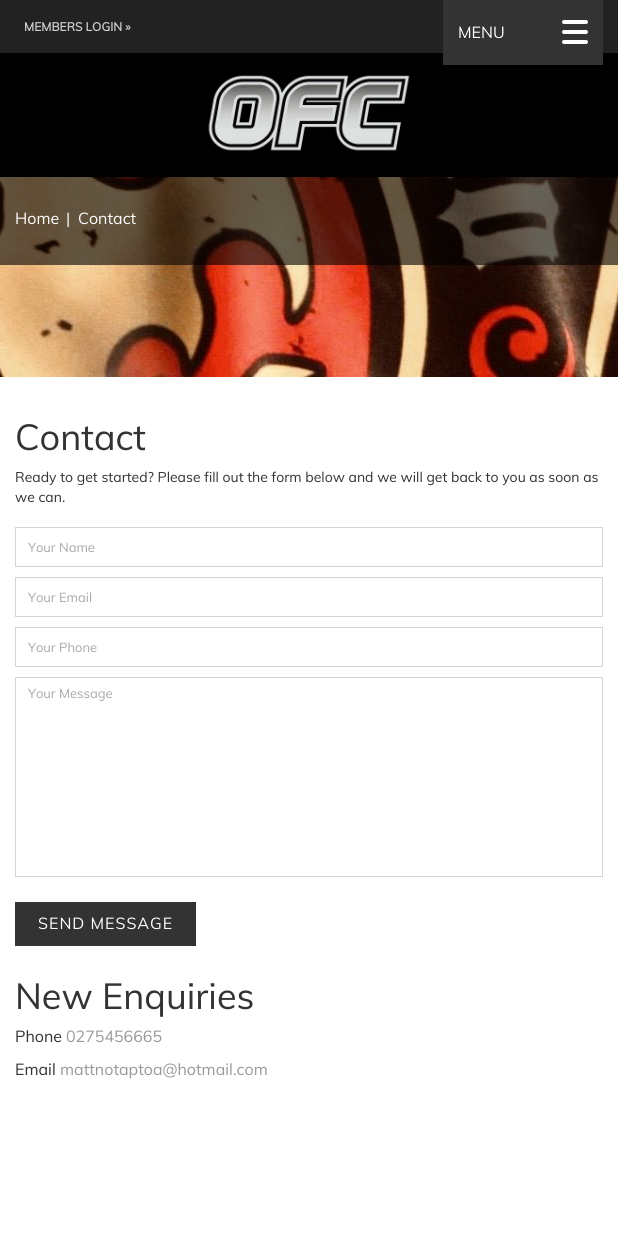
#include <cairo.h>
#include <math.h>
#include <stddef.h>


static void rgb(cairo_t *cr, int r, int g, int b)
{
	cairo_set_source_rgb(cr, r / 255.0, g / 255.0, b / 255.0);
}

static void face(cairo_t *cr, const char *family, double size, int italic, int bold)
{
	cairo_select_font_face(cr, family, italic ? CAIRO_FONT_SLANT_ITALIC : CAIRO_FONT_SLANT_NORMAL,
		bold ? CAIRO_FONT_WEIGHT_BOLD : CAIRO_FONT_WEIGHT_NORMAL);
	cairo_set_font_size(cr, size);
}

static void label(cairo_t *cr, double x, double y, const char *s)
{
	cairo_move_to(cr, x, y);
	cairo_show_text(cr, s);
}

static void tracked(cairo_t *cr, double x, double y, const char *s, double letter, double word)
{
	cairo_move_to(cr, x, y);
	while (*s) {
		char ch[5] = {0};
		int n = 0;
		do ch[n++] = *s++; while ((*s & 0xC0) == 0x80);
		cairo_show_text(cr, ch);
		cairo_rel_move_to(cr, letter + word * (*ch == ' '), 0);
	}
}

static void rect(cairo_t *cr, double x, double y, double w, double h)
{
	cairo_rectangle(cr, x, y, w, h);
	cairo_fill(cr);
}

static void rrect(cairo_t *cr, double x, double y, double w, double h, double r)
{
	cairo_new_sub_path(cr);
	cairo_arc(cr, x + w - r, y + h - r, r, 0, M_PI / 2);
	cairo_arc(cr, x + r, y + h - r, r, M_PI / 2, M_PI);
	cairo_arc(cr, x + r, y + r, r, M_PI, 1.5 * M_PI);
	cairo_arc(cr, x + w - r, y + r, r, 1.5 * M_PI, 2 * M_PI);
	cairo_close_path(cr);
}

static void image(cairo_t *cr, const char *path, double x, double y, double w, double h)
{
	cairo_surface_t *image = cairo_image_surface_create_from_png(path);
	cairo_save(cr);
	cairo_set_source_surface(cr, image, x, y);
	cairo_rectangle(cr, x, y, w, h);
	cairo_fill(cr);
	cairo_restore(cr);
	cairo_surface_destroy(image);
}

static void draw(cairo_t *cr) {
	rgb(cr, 255, 255, 255);
	cairo_paint(cr);
	rgb(cr, 34, 34, 34);
	rect(cr, 0, 0, 618, 53);
	face(cr, "Muli", 12, 0, 1);
	rgb(cr, 204, 204, 204);
	label(cr, 24, 31, "MEMBERS LOGIN »");
	rgb(cr, 0, 0, 0);
	rect(cr, 0, 53, 618, 124);
	rgb(cr, 51, 51, 51);
	rect(cr, 443, 0, 160, 65);
	face(cr, "Muli", 16, 0, 0);
	rgb(cr, 255, 255, 255);
	label(cr, 458, 38, "MENU");
	rrect(cr, 562, 20, 26, 4, 2);
	cairo_fill(cr);
	rrect(cr, 562, 30, 26, 4, 2);
	cairo_fill(cr);
	rrect(cr, 562, 40, 26, 4, 2);
	cairo_fill(cr);
	image(cr, "image0.png", 208, 75, 202, 76);
	image(cr, "image1.png", 0, 177, 618, 200);
	cairo_set_source_rgba(cr, 0, 0, 0, 0.6);
	rect(cr, 0, 177, 618, 88);
	rgb(cr, 255, 255, 255);
	label(cr, 15, 224, "Home");
	label(cr, 66, 224, "|");
	label(cr, 78, 224, "Contact");
	face(cr, "Muli", 36, 0, 0);
	rgb(cr, 51, 51, 51);
	label(cr, 15, 450, "Contact");
	face(cr, "Muli", 14, 0, 0);
	label(cr, 15, 482, "Ready to get started? Please fill out the form below and we will get back to you as soon as");
	label(cr, 15, 502, "we can.");
	cairo_rectangle(cr, 15.5, 527.5, 587, 39);
	rgb(cr, 212, 212, 212);
	cairo_set_line_width(cr, 1);
	cairo_stroke(cr);
	face(cr, "Muli", 13, 0, 0);
	rgb(cr, 168, 168, 168);
	label(cr, 28, 552, "Your Name");
	cairo_rectangle(cr, 15.5, 577.5, 587, 39);
	rgb(cr, 212, 212, 212);
	cairo_stroke(cr);
	rgb(cr, 168, 168, 168);
	label(cr, 28, 602, "Your Email");
	cairo_rectangle(cr, 15.5, 627.5, 587, 39);
	rgb(cr, 212, 212, 212);
	cairo_stroke(cr);
	rgb(cr, 168, 168, 168);
	label(cr, 28, 652, "Your Phone");
	cairo_rectangle(cr, 15.5, 677.5, 587, 199);
	rgb(cr, 212, 212, 212);
	cairo_stroke(cr);
	rgb(cr, 168, 168, 168);
	label(cr, 28, 698, "Your Message");
	rgb(cr, 51, 51, 51);
	rect(cr, 15, 902, 181, 44);
	face(cr, "Muli", 16, 0, 0);
	rgb(cr, 255, 255, 255);
	tracked(cr, 38, 929, "SEND MESSAGE", 1, 0);
	face(cr, "Muli", 36, 0, 0);
	rgb(cr, 51, 51, 51);
	label(cr, 15, 1009, "New Enquiries");
	face(cr, "Muli", 16, 0, 0);
	label(cr, 15, 1042, "Phone");
	rgb(cr, 153, 153, 153);
	label(cr, 66, 1042, "0275456665");
	rgb(cr, 51, 51, 51);
	label(cr, 15, 1075, "Email");
	rgb(cr, 153, 153, 153);
	label(cr, 60, 1075, "mattnotaptoa@hotmail.com");
}

int main(void) {
	cairo_surface_t *surface = cairo_image_surface_create(CAIRO_FORMAT_RGB24, 618, 1255);
	cairo_t *cr = cairo_create(surface);
	cairo_font_options_t *options = cairo_font_options_create();
	cairo_font_options_set_hint_metrics(options, CAIRO_HINT_METRICS_OFF);
	cairo_font_options_set_hint_style(options, CAIRO_HINT_STYLE_NONE);
	cairo_set_font_options(cr, options);
	cairo_set_miter_limit(cr, 4);
	draw(cr);
	cairo_surface_write_to_png(surface, "render.png");
	cairo_font_options_destroy(options);
	cairo_destroy(cr);
	cairo_surface_destroy(surface);
	return 0;
}
